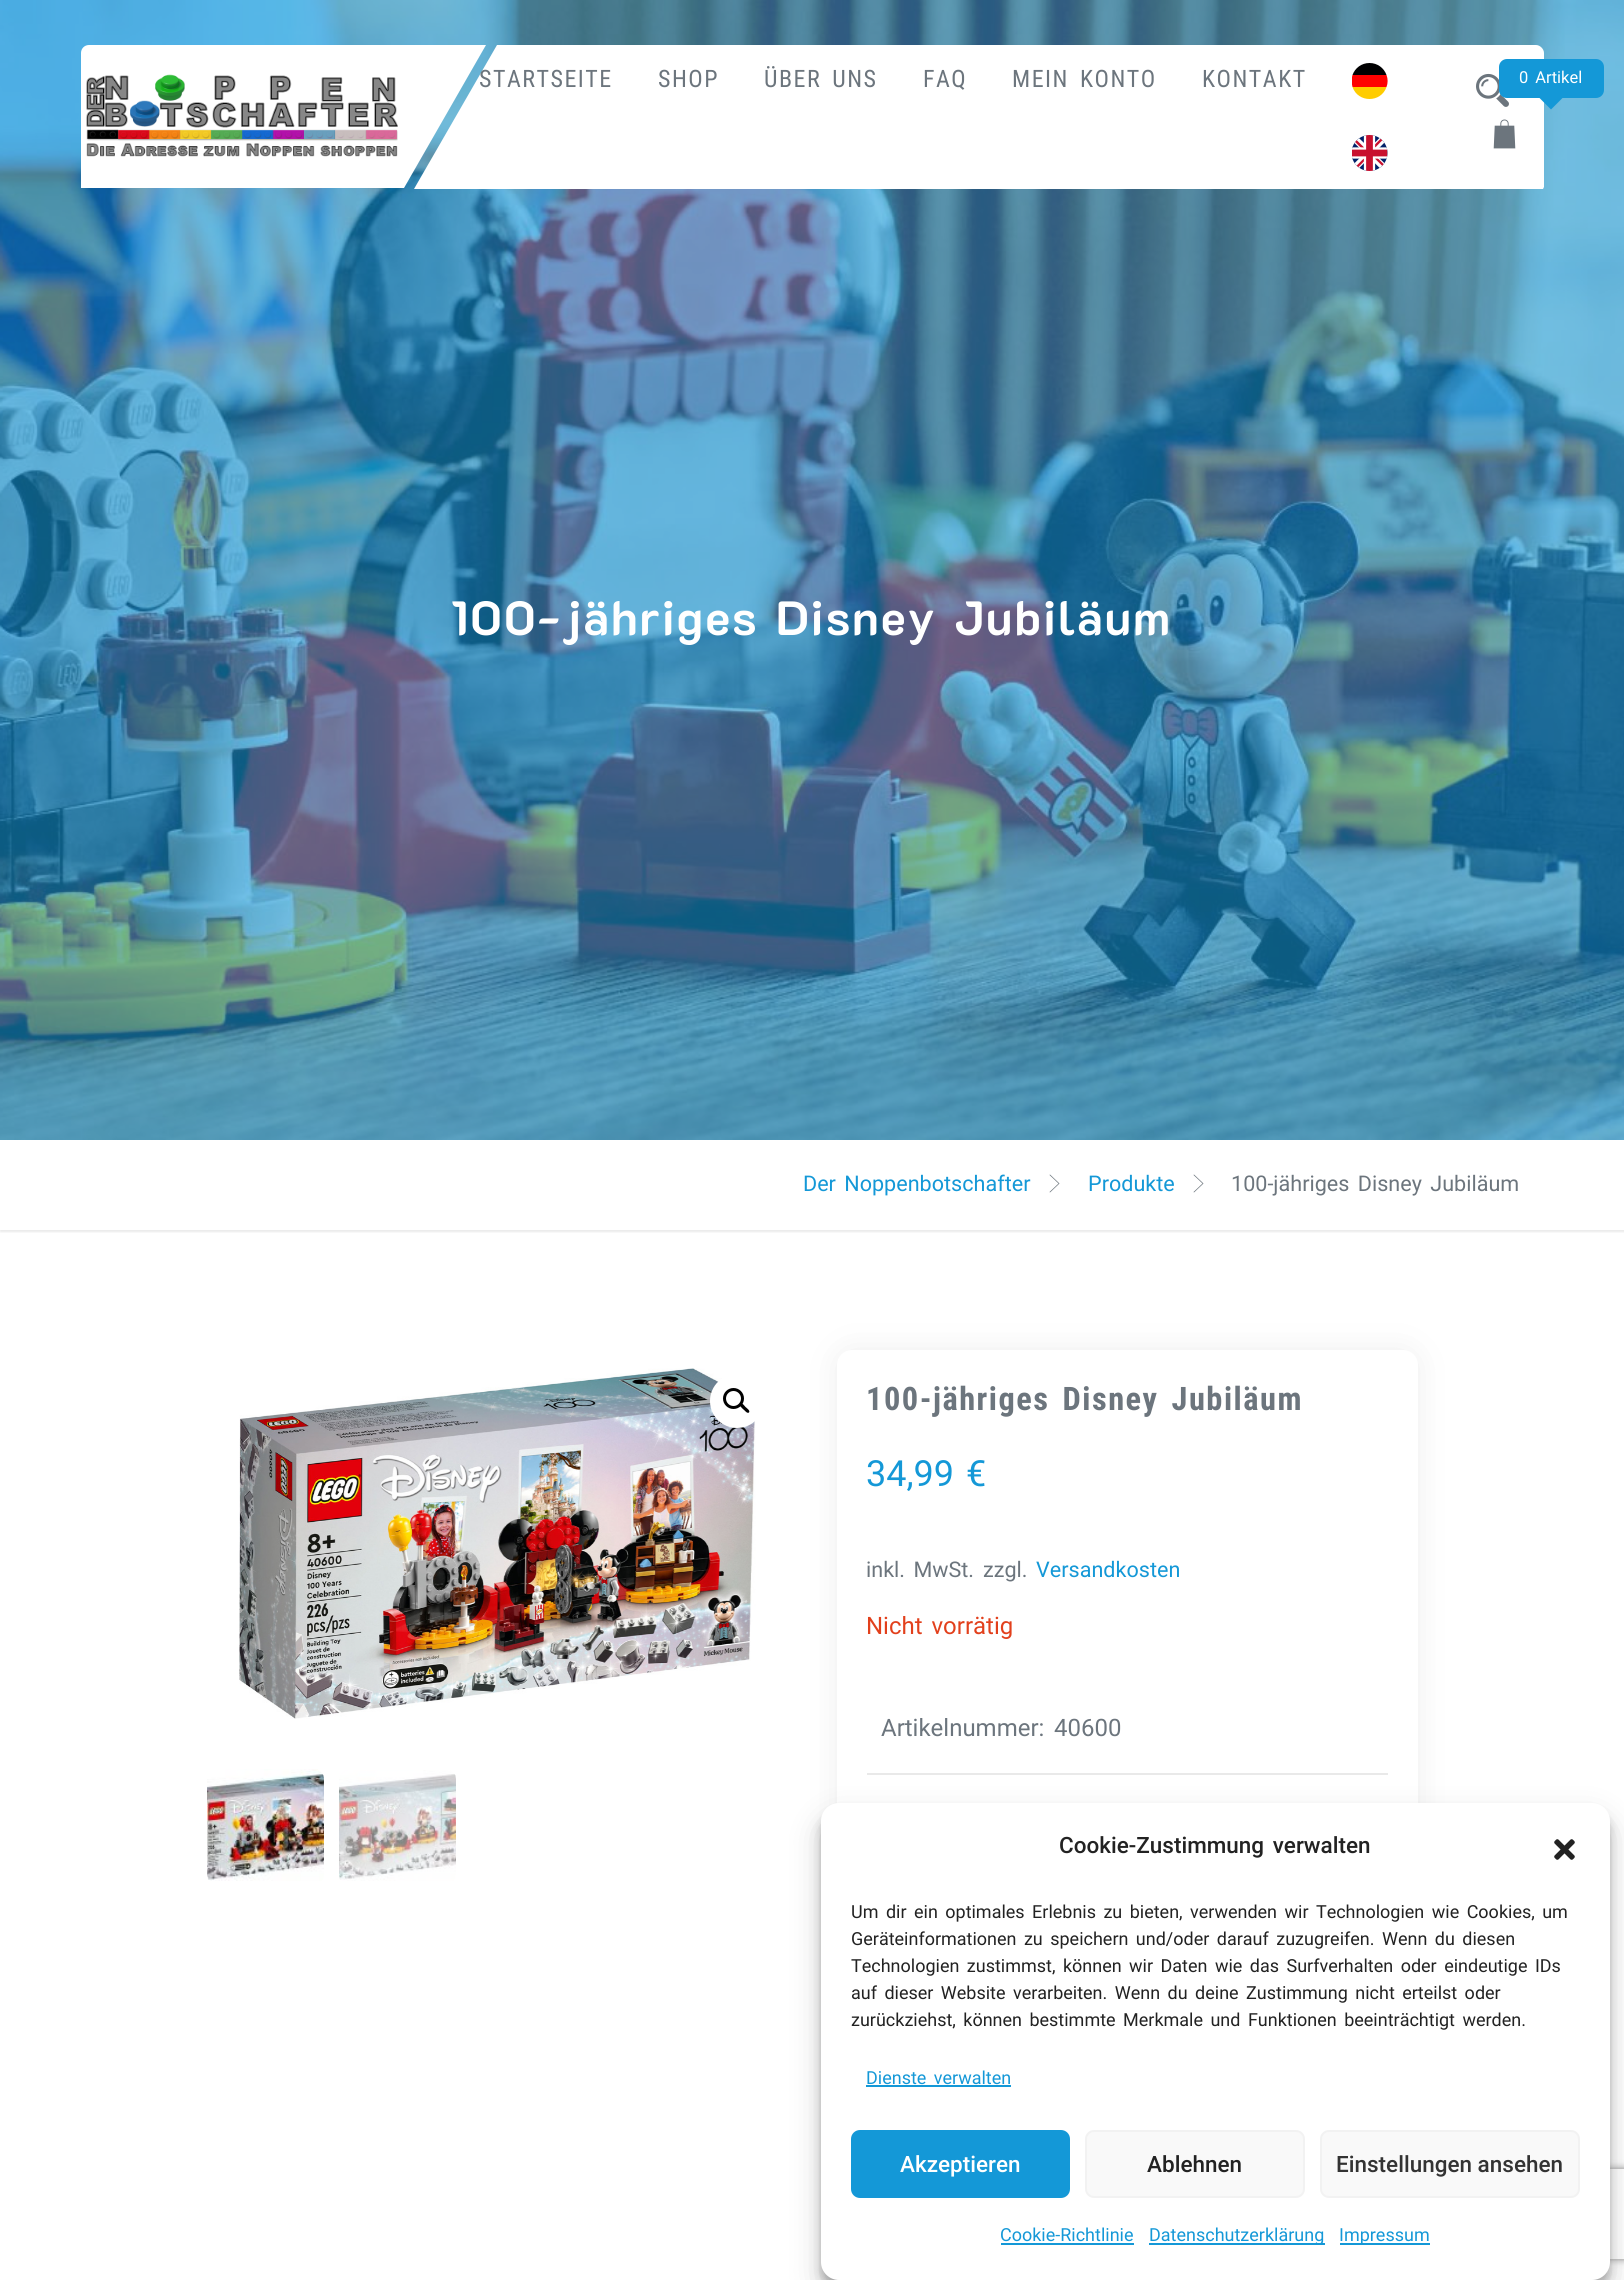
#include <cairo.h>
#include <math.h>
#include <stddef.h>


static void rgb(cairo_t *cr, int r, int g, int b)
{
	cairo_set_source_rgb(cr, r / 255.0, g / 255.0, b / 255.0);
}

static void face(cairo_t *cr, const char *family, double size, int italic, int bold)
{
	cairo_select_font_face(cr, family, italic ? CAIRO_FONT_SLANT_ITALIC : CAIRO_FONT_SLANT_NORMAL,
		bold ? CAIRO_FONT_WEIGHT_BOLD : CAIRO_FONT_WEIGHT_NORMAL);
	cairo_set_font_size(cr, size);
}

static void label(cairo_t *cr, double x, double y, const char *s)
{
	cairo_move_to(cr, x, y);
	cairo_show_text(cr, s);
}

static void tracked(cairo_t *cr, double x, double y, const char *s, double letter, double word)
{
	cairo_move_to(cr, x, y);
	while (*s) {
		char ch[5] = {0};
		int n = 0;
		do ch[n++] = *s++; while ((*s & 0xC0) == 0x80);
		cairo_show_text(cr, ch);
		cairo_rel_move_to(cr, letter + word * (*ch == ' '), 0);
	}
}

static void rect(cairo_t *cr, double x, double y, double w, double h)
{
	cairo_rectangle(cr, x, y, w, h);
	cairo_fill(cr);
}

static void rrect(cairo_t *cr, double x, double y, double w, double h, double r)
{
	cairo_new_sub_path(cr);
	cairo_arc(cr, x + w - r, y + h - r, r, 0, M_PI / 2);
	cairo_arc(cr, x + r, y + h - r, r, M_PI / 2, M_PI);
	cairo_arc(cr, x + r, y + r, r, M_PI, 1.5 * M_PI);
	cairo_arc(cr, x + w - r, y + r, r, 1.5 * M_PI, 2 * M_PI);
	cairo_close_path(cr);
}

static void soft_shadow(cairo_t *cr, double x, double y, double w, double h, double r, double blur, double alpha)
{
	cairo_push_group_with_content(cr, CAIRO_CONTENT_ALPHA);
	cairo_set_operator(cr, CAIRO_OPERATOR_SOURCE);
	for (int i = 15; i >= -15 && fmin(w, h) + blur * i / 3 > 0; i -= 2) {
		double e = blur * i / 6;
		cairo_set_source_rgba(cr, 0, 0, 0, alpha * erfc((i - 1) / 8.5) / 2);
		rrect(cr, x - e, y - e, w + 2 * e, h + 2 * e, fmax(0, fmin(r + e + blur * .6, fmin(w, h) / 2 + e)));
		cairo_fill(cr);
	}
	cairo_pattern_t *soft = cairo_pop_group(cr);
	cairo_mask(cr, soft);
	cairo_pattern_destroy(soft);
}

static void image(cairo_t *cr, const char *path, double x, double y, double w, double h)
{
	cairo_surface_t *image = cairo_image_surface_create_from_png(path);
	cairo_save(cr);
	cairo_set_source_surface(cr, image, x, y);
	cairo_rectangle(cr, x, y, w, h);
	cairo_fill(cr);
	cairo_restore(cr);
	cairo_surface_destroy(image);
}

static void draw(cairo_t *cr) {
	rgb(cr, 255, 255, 255);
	cairo_paint(cr);
	cairo_save(cr);
	cairo_rectangle(cr, 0, 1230, 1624, 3);
	cairo_clip(cr);
	rgb(cr, 0, 0, 0);
	soft_shadow(cr, 0, 1142, 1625, 90, 0, 1, 0.08);
	cairo_restore(cr);
	image(cr, "image4.png", 0, 0, 1624, 1140);
	rgb(cr, 255, 255, 255);
	cairo_new_path(cr);
	cairo_move_to(cr, 163, 45);
	cairo_line_to(cr, 486, 45);
	cairo_line_to(cr, 404, 188);
	cairo_line_to(cr, 81, 188);
	cairo_close_path(cr);
	cairo_fill(cr);
	cairo_new_path(cr);
	cairo_move_to(cr, 89, 45);
	cairo_line_to(cr, 404, 45);
	cairo_line_to(cr, 404, 188);
	cairo_line_to(cr, 81, 188);
	cairo_line_to(cr, 81, 53);
	cairo_curve_to(cr, 81, 48.5, 84.5, 45, 89, 45);
	cairo_close_path(cr);
	cairo_fill(cr);
	image(cr, "image0.png", 86, 74, 312, 83);
	cairo_new_path(cr);
	cairo_move_to(cr, 497, 45);
	cairo_line_to(cr, 414, 189);
	cairo_line_to(cr, 1543, 189);
	cairo_line_to(cr, 1544, 187);
	cairo_line_to(cr, 1544, 53);
	cairo_curve_to(cr, 1544, 49, 1540, 45, 1536, 45);
	cairo_close_path(cr);
	cairo_fill(cr);
	face(cr, "Roboto Condensed", 24, 0, 0);
	rgb(cr, 108, 117, 125);
	tracked(cr, 479, 87, "STARTSEITE", 1.5, 0);
	tracked(cr, 658, 87, "SHOP", 1.5, 0);
	tracked(cr, 764, 87, "ÜBER UNS", 1.5, 4);
	tracked(cr, 923, 87, "FAQ", 1.5, 0);
	tracked(cr, 1012, 87, "MEIN KONTO", 1.5, 4);
	tracked(cr, 1202, 87, "KONTAKT", 1.5, 0);
	rgb(cr, 255, 204, 0);
	cairo_new_path(cr);
	cairo_move_to(cr, 1386.5, 87);
	cairo_curve_to(cr, 1381, 103, 1358, 103, 1352.5, 87);
	cairo_close_path(cr);
	cairo_fill(cr);
	rgb(cr, 0, 0, 1);
	cairo_new_path(cr);
	cairo_move_to(cr, 1369.5, 63);
	cairo_curve_to(cr, 1361.5, 63, 1355, 68, 1352.5, 75);
	cairo_line_to(cr, 1386.5, 75);
	cairo_curve_to(cr, 1384, 68, 1377.5, 63, 1369.5, 63);
	cairo_close_path(cr);
	cairo_fill(cr);
	cairo_save(cr);
	cairo_rectangle(cr, 1352, 63, 36, 36);
	cairo_clip(cr);
	rgb(cr, 255, 0, 0);
	cairo_new_path(cr);
	cairo_move_to(cr, 1352, 77);
	cairo_line_to(cr, 1352.5, 75);
	cairo_line_to(cr, 1386.5, 75);
	cairo_curve_to(cr, 1388, 79, 1388, 83, 1386.5, 87);
	cairo_line_to(cr, 1352.5, 87);
	cairo_curve_to(cr, 1351.5, 84, 1352, 80, 1352, 77);
	cairo_close_path(cr);
	cairo_fill(cr);
	cairo_restore(cr);
	image(cr, "image1.png", 1352, 135, 36, 36);
	image(cr, "image2.png", 1476, 73, 33, 34);
	rgb(cr, 20, 152, 215);
	rrect(cr, 1499, 59, 105, 39, 8);
	cairo_fill(cr);
	face(cr, "Roboto", 16.5, 0, 0);
	rgb(cr, 255, 255, 255);
	tracked(cr, 1519, 83, "0 Artikel", 0, 3);
	rgb(cr, 20, 152, 215);
	cairo_new_path(cr);
	cairo_move_to(cr, 1539, 97.5);
	cairo_line_to(cr, 1563, 97.5);
	cairo_line_to(cr, 1551, 109.5);
	cairo_close_path(cr);
	cairo_fill(cr);
	image(cr, "image3.png", 1493, 119, 23, 30);
	face(cr, "K2D", 48, 0, 1);
	rgb(cr, 255, 255, 255);
	tracked(cr, 451, 635, "100-jähriges Disney Jubiläum", 1.5, 4);
	face(cr, "Roboto", 21.6, 0, 0);
	rgb(cr, 20, 152, 215);
	tracked(cr, 803, 1191, "Der Noppenbotschafter", 0, 3);
	rgb(cr, 108, 117, 125);
	cairo_new_path(cr);
	cairo_move_to(cr, 1049.5, 1192);
	cairo_line_to(cr, 1058.5, 1183.5);
	cairo_line_to(cr, 1049.5, 1175);
	cairo_line_to(cr, 1050, 1174.5);
	cairo_line_to(cr, 1059.5, 1183.5);
	cairo_line_to(cr, 1050, 1192.5);
	cairo_close_path(cr);
	cairo_fill(cr);
	rgb(cr, 20, 152, 215);
	label(cr, 1088, 1191, "Produkte");
	rgb(cr, 108, 117, 125);
	cairo_new_path(cr);
	cairo_move_to(cr, 1193.5, 1192);
	cairo_line_to(cr, 1202.5, 1183.5);
	cairo_line_to(cr, 1193.5, 1175);
	cairo_line_to(cr, 1194, 1174.5);
	cairo_line_to(cr, 1203.5, 1183.5);
	cairo_line_to(cr, 1194, 1192.5);
	cairo_close_path(cr);
	cairo_fill(cr);
	tracked(cr, 1231, 1191, "100-jähriges Disney Jubiläum", 0, 3);
	image(cr, "image5.png", 239, 1368, 517, 351);
	rgb(cr, 255, 255, 255);
	cairo_arc(cr, 737, 1401, 27, 0, 2 * M_PI);
	cairo_fill(cr);
	cairo_arc(cr, 733.5, 1398.5, 9, 0, 2 * M_PI);
	rgb(cr, 0, 0, 0);
	cairo_set_line_width(cr, 3);
	cairo_stroke(cr);
	cairo_new_path(cr);
	cairo_move_to(cr, 740.5, 1404);
	cairo_curve_to(cr, 742, 1402, 744.5, 1406, 745.5, 1407);
	cairo_curve_to(cr, 746.5, 1408, 750.5, 1410.5, 749, 1412.5);
	cairo_curve_to(cr, 747, 1414, 744.5, 1410, 743.5, 1409.5);
	cairo_curve_to(cr, 742.5, 1408.5, 738.5, 1405.5, 740.5, 1404);
	cairo_close_path(cr);
	cairo_fill(cr);
	image(cr, "image6.png", 207, 1769, 117, 112);
	image(cr, "image7.png", 339, 1770, 117, 111);
	rgb(cr, 74, 74, 74);
	soft_shadow(cr, 837, 1350, 581, 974, 15, 15, 0.1);
	rgb(cr, 255, 255, 255);
	rrect(cr, 837, 1350, 581, 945, 15);
	cairo_fill(cr);
	face(cr, "Roboto Condensed", 32.4, 0, 1);
	rgb(cr, 108, 117, 125);
	tracked(cr, 866, 1410, "100-jähriges Disney Jubiläum", 1.5, 4);
	face(cr, "Roboto", 36, 0, 0);
	rgb(cr, 20, 152, 215);
	label(cr, 866, 1486, "34,99");
	label(cr, 966, 1486, "€");
	face(cr, "Roboto", 21.6, 0, 0);
	rgb(cr, 108, 117, 125);
	tracked(cr, 866, 1577, "inkl. MwSt.", 0, 3);
	label(cr, 983, 1577, "zzgl.");
	rgb(cr, 20, 152, 215);
	label(cr, 1036, 1577, "Versandkosten");
	face(cr, "Roboto", 24, 0, 0);
	rgb(cr, 226, 64, 28);
	tracked(cr, 866, 1634, "Nicht vorrätig", 0, 3);
	rgb(cr, 233, 233, 233);
	rect(cr, 867, 1773, 521, 2);
	rgb(cr, 108, 117, 125);
	label(cr, 881, 1736, "Artikelnummer:");
	label(cr, 1054, 1736, "40600");
	rgb(cr, 0, 0, 0);
	soft_shadow(cr, 821, 1812, 789, 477, 18, 4.5, 0.23);
	soft_shadow(cr, 821, 1818, 789, 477, 18, 15, 0.19);
	cairo_save(cr);
	cairo_set_fill_rule(cr, CAIRO_FILL_RULE_EVEN_ODD);
	cairo_new_path(cr);
	cairo_move_to(cr, 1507, 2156);
	cairo_line_to(cr, 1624, 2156);
	cairo_line_to(cr, 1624, 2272);
	cairo_line_to(cr, 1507, 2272);
	cairo_close_path(cr);
	cairo_move_to(cr, 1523, 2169);
	cairo_line_to(cr, 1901, 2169);
	cairo_curve_to(cr, 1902.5, 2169, 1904, 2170.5, 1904, 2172);
	cairo_line_to(cr, 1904, 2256);
	cairo_curve_to(cr, 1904, 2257.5, 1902.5, 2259, 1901, 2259);
	cairo_line_to(cr, 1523, 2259);
	cairo_curve_to(cr, 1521.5, 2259, 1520, 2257.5, 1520, 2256);
	cairo_line_to(cr, 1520, 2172);
	cairo_curve_to(cr, 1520, 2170.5, 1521.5, 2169, 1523, 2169);
	cairo_close_path(cr);
	cairo_clip(cr);
	rgb(cr, 128, 128, 128);
	soft_shadow(cr, 1520, 2169, 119, 90, 3, 4, 1);
	cairo_restore(cr);
	rgb(cr, 255, 255, 255);
	rrect(cr, 821, 1803, 789, 477, 18);
	cairo_fill(cr);
	face(cr, "Roboto Medium", 22.5, 0, 0);
	rgb(cr, 34, 34, 34);
	tracked(cr, 1059, 1853, "Cookie-Zustimmung verwalten", 0, 3);
	image(cr, "image8.png", 1554, 1839, 21, 21);
	face(cr, "Roboto", 18, 0, 0);
	tracked(cr, 851, 1918, "Um dir ein optimales Erlebnis zu bieten, verwenden wir Technologien wie Cookies, um", 0, 3);
	tracked(cr, 851, 1945, "Geräteinformationen zu speichern und/oder darauf zuzugreifen. Wenn du diesen", 0, 3);
	tracked(cr, 851, 1972, "Technologien zustimmst, können wir Daten wie das Surfverhalten oder eindeutige IDs", 0, 3);
	tracked(cr, 851, 1999, "auf dieser Website verarbeiten. Wenn du deine Zustimmung nicht erteilst oder", 0, 3);
	tracked(cr, 851, 2026, "zurückziehst, können bestimmte Merkmale und Funktionen beeinträchtigt werden.", 0, 3);
	rgb(cr, 20, 152, 215);
	tracked(cr, 866, 2084, "Dienste verwalten", 0, 3);
	rect(cr, 866, 2085, 145, 2);
	rrect(cr, 852, 2131, 217, 66, 8);
	cairo_fill_preserve(cr);
	cairo_set_line_width(cr, 2);
	cairo_stroke(cr);
	face(cr, "Roboto Medium", 22.5, 0, 0);
	rgb(cr, 255, 255, 255);
	label(cr, 900, 2172, "Akzeptieren");
	rgb(cr, 249, 249, 249);
	rrect(cr, 1086, 2131, 218, 66, 8);
	cairo_fill_preserve(cr);
	rgb(cr, 242, 242, 242);
	cairo_stroke(cr);
	rgb(cr, 34, 34, 34);
	label(cr, 1147, 2172, "Ablehnen");
	rgb(cr, 249, 249, 249);
	rrect(cr, 1321, 2131, 258, 66, 8);
	cairo_fill_preserve(cr);
	rgb(cr, 242, 242, 242);
	cairo_stroke(cr);
	rgb(cr, 51, 51, 51);
	label(cr, 1336, 2172, "Einstellungen ansehen");
	face(cr, "Roboto", 18, 0, 0);
	rgb(cr, 20, 152, 215);
	label(cr, 1000, 2241, "Cookie-Richtlinie");
	rect(cr, 1001, 2243, 133, 2);
	rect(cr, 1149, 2243, 176, 2);
	label(cr, 1149, 2241, "Datenschutzerklärung");
	rect(cr, 1340, 2243, 90, 2);
	label(cr, 1339, 2241, "Impressum");
}

int main(void) {
	cairo_surface_t *surface = cairo_image_surface_create(CAIRO_FORMAT_RGB24, 1624, 2280);
	cairo_t *cr = cairo_create(surface);
	cairo_font_options_t *options = cairo_font_options_create();
	cairo_font_options_set_hint_metrics(options, CAIRO_HINT_METRICS_OFF);
	cairo_font_options_set_hint_style(options, CAIRO_HINT_STYLE_NONE);
	cairo_set_font_options(cr, options);
	cairo_set_miter_limit(cr, 4);
	draw(cr);
	cairo_surface_write_to_png(surface, "render.png");
	cairo_font_options_destroy(options);
	cairo_destroy(cr);
	cairo_surface_destroy(surface);
	return 0;
}
